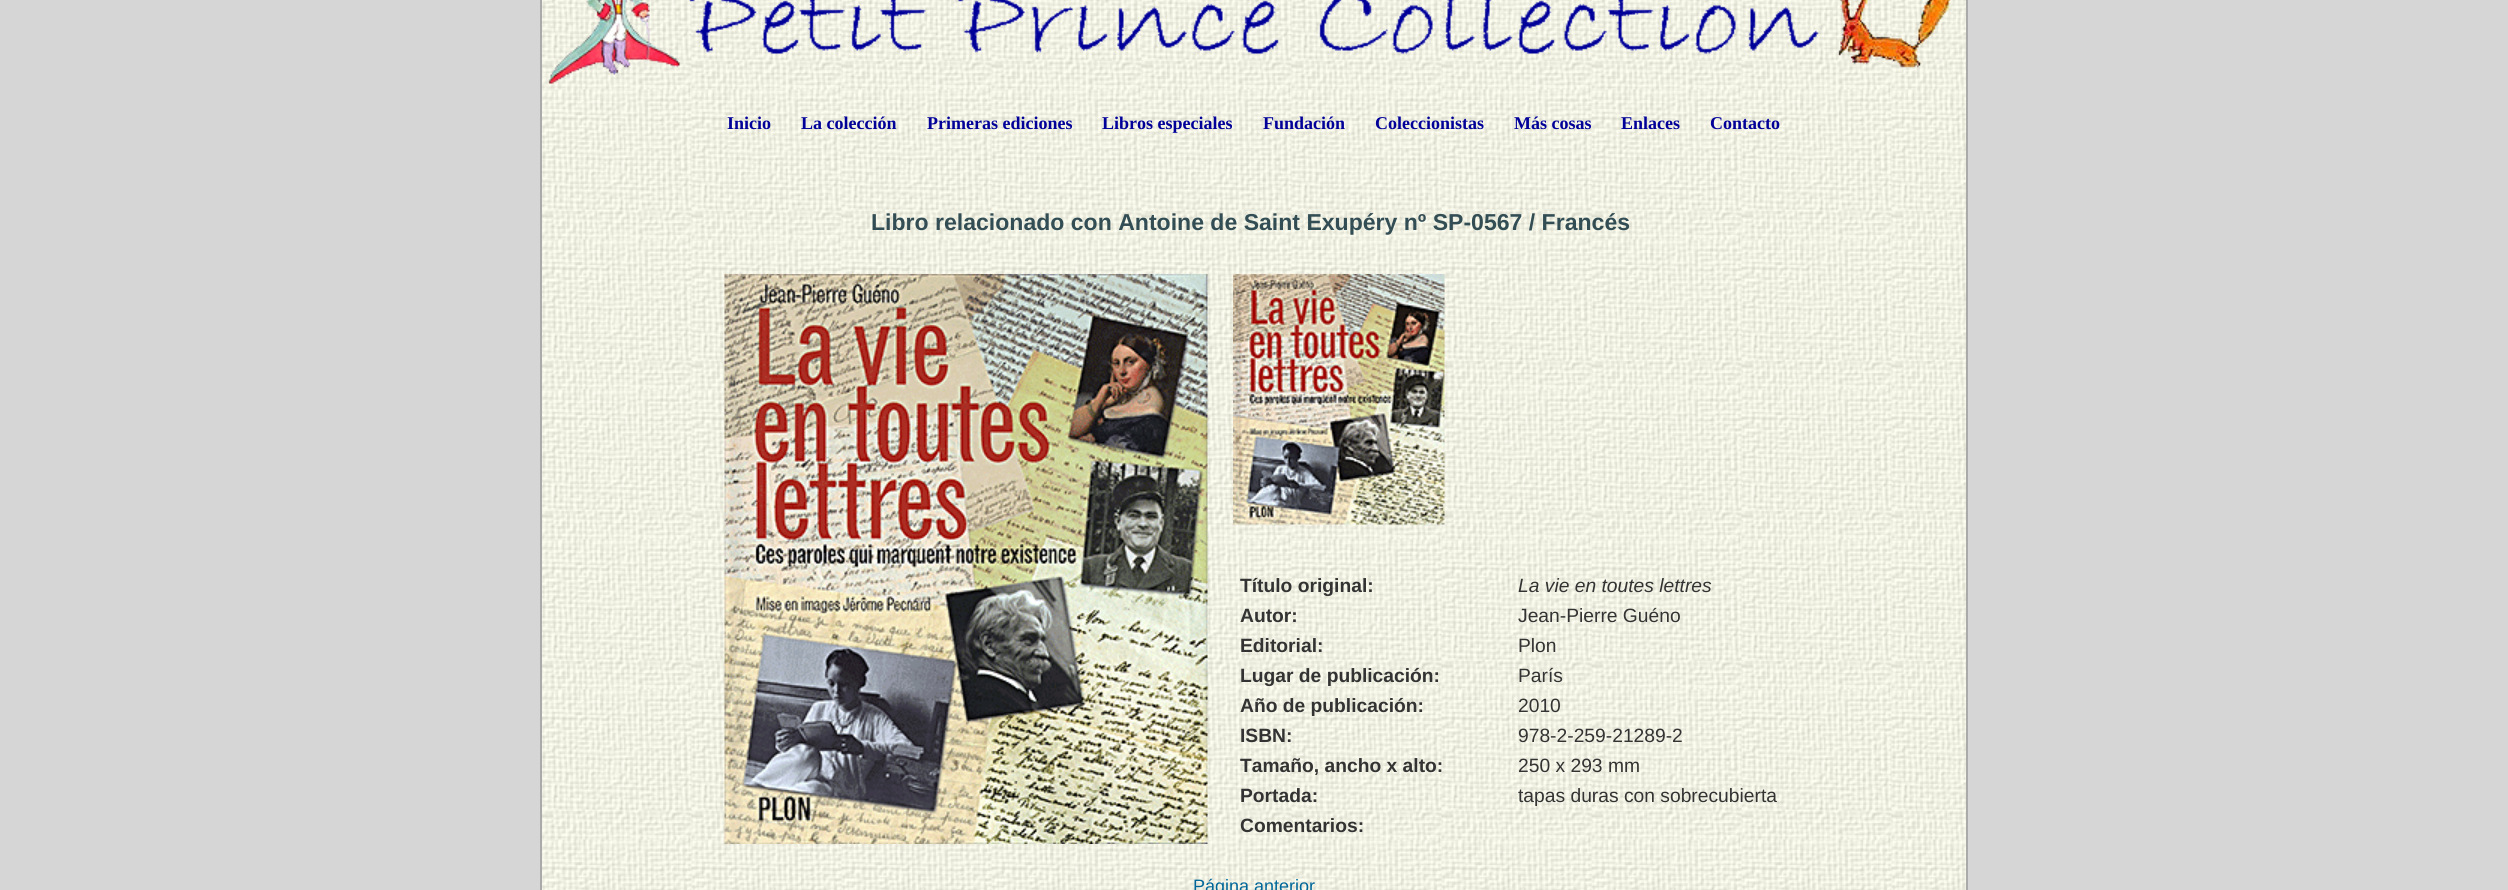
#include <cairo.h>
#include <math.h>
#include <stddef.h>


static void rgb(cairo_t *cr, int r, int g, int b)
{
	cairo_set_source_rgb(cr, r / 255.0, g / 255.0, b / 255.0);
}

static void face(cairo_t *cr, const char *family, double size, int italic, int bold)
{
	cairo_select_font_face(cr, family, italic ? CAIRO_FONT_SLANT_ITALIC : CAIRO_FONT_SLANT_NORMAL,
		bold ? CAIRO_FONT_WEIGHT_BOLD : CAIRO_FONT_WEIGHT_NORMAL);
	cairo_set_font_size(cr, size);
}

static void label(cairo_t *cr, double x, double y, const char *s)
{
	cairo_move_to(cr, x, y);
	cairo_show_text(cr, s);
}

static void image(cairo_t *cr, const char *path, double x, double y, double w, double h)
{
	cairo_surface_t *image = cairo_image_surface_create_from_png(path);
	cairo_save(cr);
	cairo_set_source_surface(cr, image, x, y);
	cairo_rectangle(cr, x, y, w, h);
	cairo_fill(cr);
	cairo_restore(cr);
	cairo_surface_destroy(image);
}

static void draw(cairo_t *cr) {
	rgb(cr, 214, 214, 214);
	cairo_paint(cr);
	image(cr, "image0.png", 542, 0, 1424, 890);
	cairo_rectangle(cr, 541, -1, 1426, 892);
	rgb(cr, 170, 170, 170);
	cairo_stroke(cr);
	image(cr, "image1.png", 548, 0, 1403, 84);
	face(cr, "Liberation Serif", 18, 0, 1);
	rgb(cr, 0, 0, 153);
	label(cr, 727, 129, "Inicio");
	label(cr, 801, 129, "La colección");
	label(cr, 927, 129, "Primeras ediciones");
	label(cr, 1102, 129, "Libros especiales");
	label(cr, 1263, 129, "Fundación");
	label(cr, 1375, 129, "Coleccionistas");
	label(cr, 1514, 129, "Más cosas");
	label(cr, 1621, 129, "Enlaces");
	label(cr, 1710, 129, "Contacto");
	face(cr, "Liberation Sans", 23.05, 0, 1);
	rgb(cr, 51, 77, 85);
	label(cr, 871, 230, "Libro relacionado con Antoine de Saint Exupéry nº SP-0567 / Francés");
	image(cr, "image2.png", 724, 274, 484, 570);
	image(cr, "image3.png", 1233, 274, 212, 251);
	face(cr, "Liberation Sans", 19.25, 0, 1);
	rgb(cr, 51, 51, 51);
	label(cr, 1240, 592, "Título original:");
	face(cr, "Liberation Sans", 19.25, 1, 0);
	label(cr, 1518, 592, "La vie en toutes lettres");
	face(cr, "Liberation Sans", 19.25, 0, 1);
	label(cr, 1240, 622, "Autor:");
	face(cr, "Liberation Sans", 19.25, 0, 0);
	label(cr, 1518, 622, "Jean-Pierre Guéno");
	face(cr, "Liberation Sans", 19.25, 0, 1);
	label(cr, 1240, 652, "Editorial:");
	face(cr, "Liberation Sans", 19.25, 0, 0);
	label(cr, 1518, 652, "Plon");
	face(cr, "Liberation Sans", 19.25, 0, 1);
	label(cr, 1240, 682, "Lugar de publicación:");
	face(cr, "Liberation Sans", 19.25, 0, 0);
	label(cr, 1518, 682, "París");
	face(cr, "Liberation Sans", 19.25, 0, 1);
	label(cr, 1240, 712, "Año de publicación:");
	face(cr, "Liberation Sans", 19.25, 0, 0);
	label(cr, 1518, 712, "2010");
	face(cr, "Liberation Sans", 19.25, 0, 1);
	label(cr, 1240, 742, "ISBN:");
	face(cr, "Liberation Sans", 19.25, 0, 0);
	label(cr, 1518, 742, "978-2-259-21289-2");
	face(cr, "Liberation Sans", 19.25, 0, 1);
	label(cr, 1240, 772, "Tamaño, ancho x alto:");
	face(cr, "Liberation Sans", 19.25, 0, 0);
	label(cr, 1518, 772, "250 x 293 mm");
	face(cr, "Liberation Sans", 19.25, 0, 1);
	label(cr, 1240, 802, "Portada:");
	face(cr, "Liberation Sans", 19.25, 0, 0);
	label(cr, 1518, 802, "tapas duras con sobrecubierta");
	face(cr, "Liberation Sans", 19.25, 0, 1);
	label(cr, 1240, 832, "Comentarios:");
	face(cr, "Liberation Sans", 18, 0, 0);
	rgb(cr, 0, 102, 153);
	label(cr, 1193, 892, "Página anterior");
}

int main(void) {
	cairo_surface_t *surface = cairo_image_surface_create(CAIRO_FORMAT_RGB24, 2508, 890);
	cairo_t *cr = cairo_create(surface);
	cairo_font_options_t *options = cairo_font_options_create();
	cairo_font_options_set_hint_metrics(options, CAIRO_HINT_METRICS_OFF);
	cairo_font_options_set_hint_style(options, CAIRO_HINT_STYLE_NONE);
	cairo_set_font_options(cr, options);
	cairo_set_miter_limit(cr, 4);
	draw(cr);
	cairo_surface_write_to_png(surface, "render.png");
	cairo_font_options_destroy(options);
	cairo_destroy(cr);
	cairo_surface_destroy(surface);
	return 0;
}
